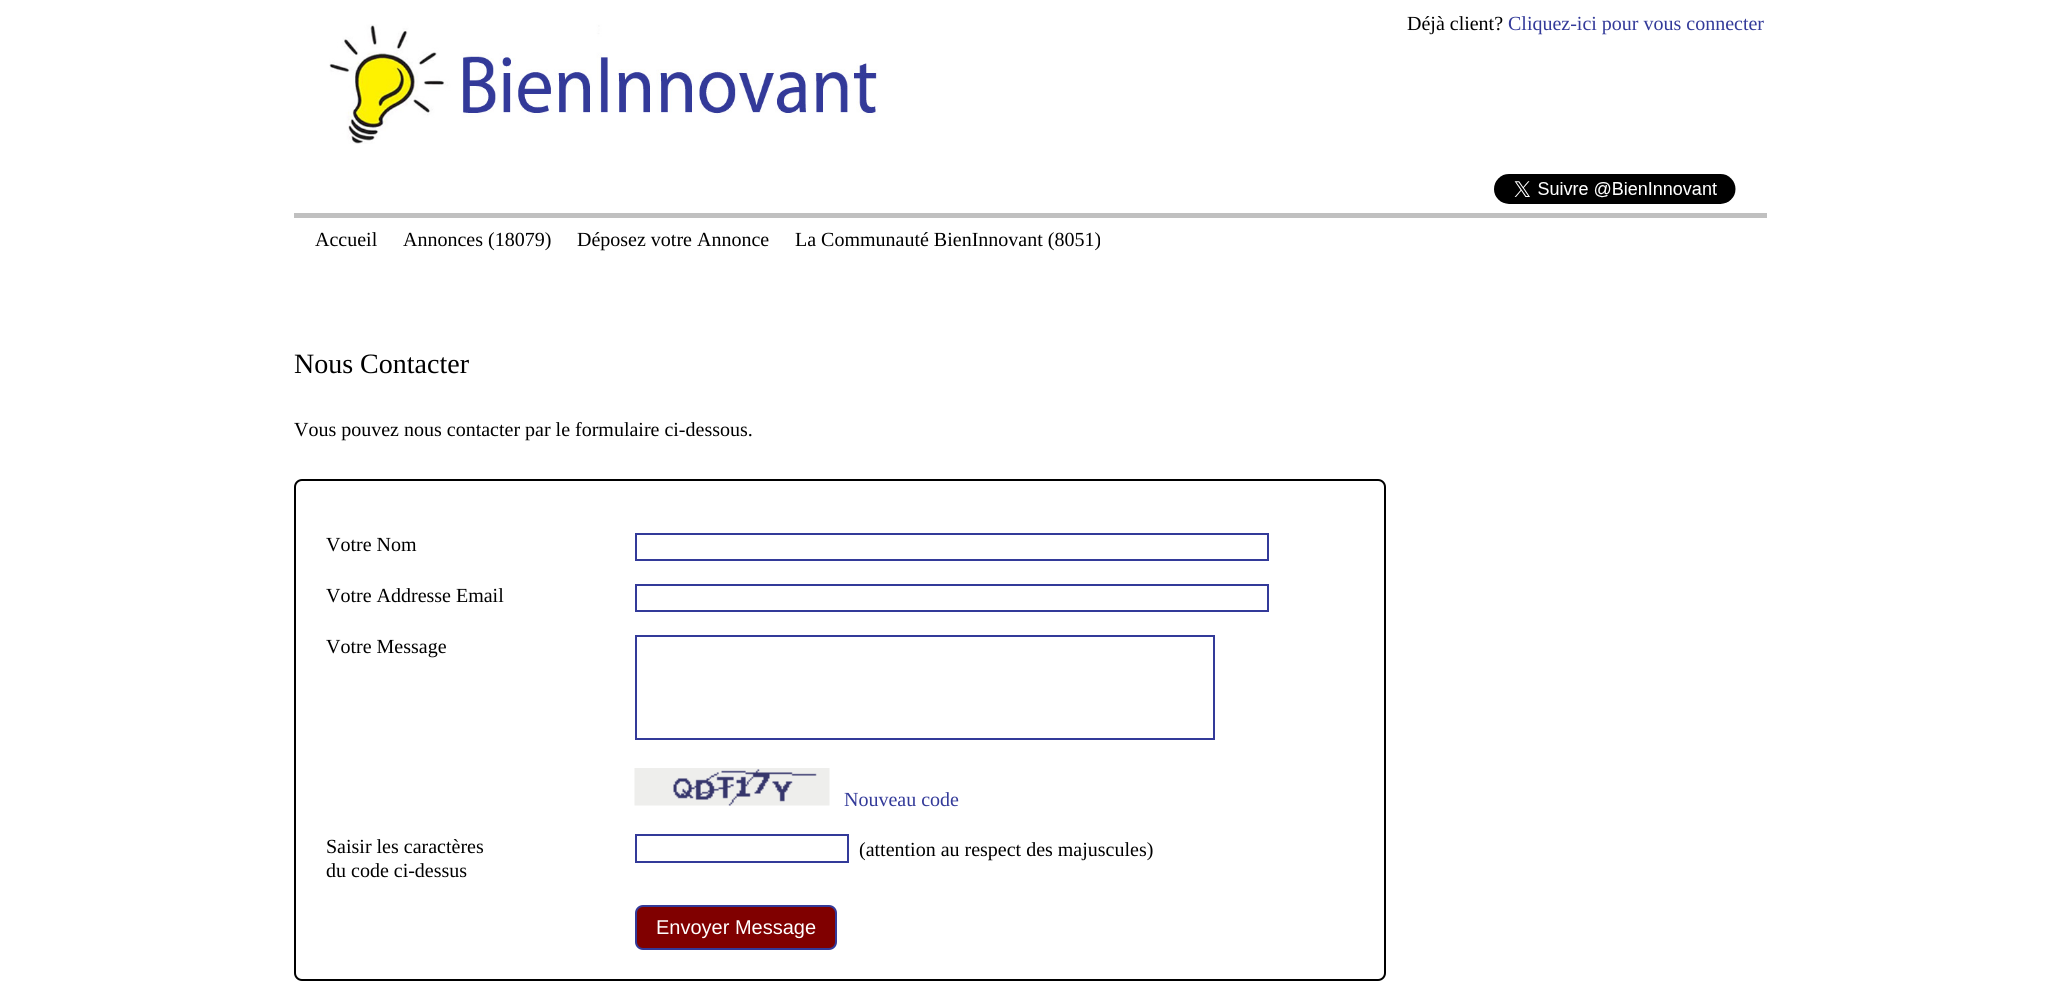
#include <cairo.h>
#include <math.h>
#include <stddef.h>


static void rgb(cairo_t *cr, int r, int g, int b)
{
	cairo_set_source_rgb(cr, r / 255.0, g / 255.0, b / 255.0);
}

static void face(cairo_t *cr, const char *family, double size, int italic, int bold)
{
	cairo_select_font_face(cr, family, italic ? CAIRO_FONT_SLANT_ITALIC : CAIRO_FONT_SLANT_NORMAL,
		bold ? CAIRO_FONT_WEIGHT_BOLD : CAIRO_FONT_WEIGHT_NORMAL);
	cairo_set_font_size(cr, size);
}

static void label(cairo_t *cr, double x, double y, const char *s)
{
	cairo_move_to(cr, x, y);
	cairo_show_text(cr, s);
}

static void rect(cairo_t *cr, double x, double y, double w, double h)
{
	cairo_rectangle(cr, x, y, w, h);
	cairo_fill(cr);
}

static void rrect(cairo_t *cr, double x, double y, double w, double h, double r)
{
	cairo_new_sub_path(cr);
	cairo_arc(cr, x + w - r, y + h - r, r, 0, M_PI / 2);
	cairo_arc(cr, x + r, y + h - r, r, M_PI / 2, M_PI);
	cairo_arc(cr, x + r, y + r, r, M_PI, 1.5 * M_PI);
	cairo_arc(cr, x + w - r, y + r, r, 1.5 * M_PI, 2 * M_PI);
	cairo_close_path(cr);
}

static void image(cairo_t *cr, const char *path, double x, double y, double w, double h)
{
	cairo_surface_t *image = cairo_image_surface_create_from_png(path);
	cairo_save(cr);
	cairo_set_source_surface(cr, image, x, y);
	cairo_rectangle(cr, x, y, w, h);
	cairo_fill(cr);
	cairo_restore(cr);
	cairo_surface_destroy(image);
}

static void draw(cairo_t *cr) {
	rgb(cr, 255, 255, 255);
	cairo_paint(cr);
	image(cr, "image0.png", 329, 24, 549, 120);
	face(cr, "Liberation Serif", 20, 0, 0);
	rgb(cr, 0, 0, 0);
	label(cr, 1407, 30, "Déjà client?");
	rgb(cr, 51, 58, 153);
	label(cr, 1508, 30, "Cliquez-ici pour vous connecter");
	image(cr, "image1.png", 1494, 174, 242, 30);
	rgb(cr, 192, 192, 192);
	rect(cr, 294, 213, 1473, 5);
	rgb(cr, 0, 0, 0);
	label(cr, 315, 246, "Accueil");
	label(cr, 403, 246, "Annonces (18079)");
	label(cr, 577, 246, "Déposez votre Annonce");
	label(cr, 795, 246, "La Communauté BienInnovant (8051)");
	face(cr, "Liberation Serif", 28, 0, 0);
	label(cr, 294, 373, "Nous Contacter");
	face(cr, "Liberation Serif", 20, 0, 0);
	label(cr, 294, 436, "Vous pouvez nous contacter par le formulaire ci-dessous.");
	rrect(cr, 295, 480, 1090, 500, 7);
	cairo_stroke(cr);
	label(cr, 326, 551, "Votre Nom");
	cairo_rectangle(cr, 636, 534, 632, 26);
	rgb(cr, 51, 58, 153);
	cairo_stroke(cr);
	rgb(cr, 0, 0, 0);
	label(cr, 326, 602, "Votre Addresse Email");
	cairo_rectangle(cr, 636, 585, 632, 26);
	rgb(cr, 51, 58, 153);
	cairo_stroke(cr);
	rgb(cr, 0, 0, 0);
	label(cr, 326, 653, "Votre Message");
	cairo_rectangle(cr, 636, 636, 578, 103);
	rgb(cr, 51, 58, 153);
	cairo_stroke(cr);
	image(cr, "image2.png", 634, 768, 196, 38);
	label(cr, 844, 806, "Nouveau code");
	rgb(cr, 0, 0, 0);
	label(cr, 326, 853, "Saisir les caractères");
	label(cr, 326, 877, "du code ci-dessus");
	cairo_rectangle(cr, 636, 835, 212, 27);
	rgb(cr, 51, 58, 153);
	cairo_stroke(cr);
	rgb(cr, 0, 0, 0);
	label(cr, 859, 856, "(attention au respect des majuscules)");
	rgb(cr, 128, 0, 0);
	rrect(cr, 636, 906, 200, 43, 7);
	cairo_fill_preserve(cr);
	rgb(cr, 51, 58, 153);
	cairo_stroke(cr);
	face(cr, "Liberation Sans", 20, 0, 0);
	rgb(cr, 255, 255, 255);
	label(cr, 656, 934, "Envoyer Message");
}

int main(void) {
	cairo_surface_t *surface = cairo_image_surface_create(CAIRO_FORMAT_RGB24, 2057, 987);
	cairo_t *cr = cairo_create(surface);
	cairo_font_options_t *options = cairo_font_options_create();
	cairo_font_options_set_hint_metrics(options, CAIRO_HINT_METRICS_OFF);
	cairo_font_options_set_hint_style(options, CAIRO_HINT_STYLE_NONE);
	cairo_set_font_options(cr, options);
	cairo_set_miter_limit(cr, 4);
	draw(cr);
	cairo_surface_write_to_png(surface, "render.png");
	cairo_font_options_destroy(options);
	cairo_destroy(cr);
	cairo_surface_destroy(surface);
	return 0;
}
